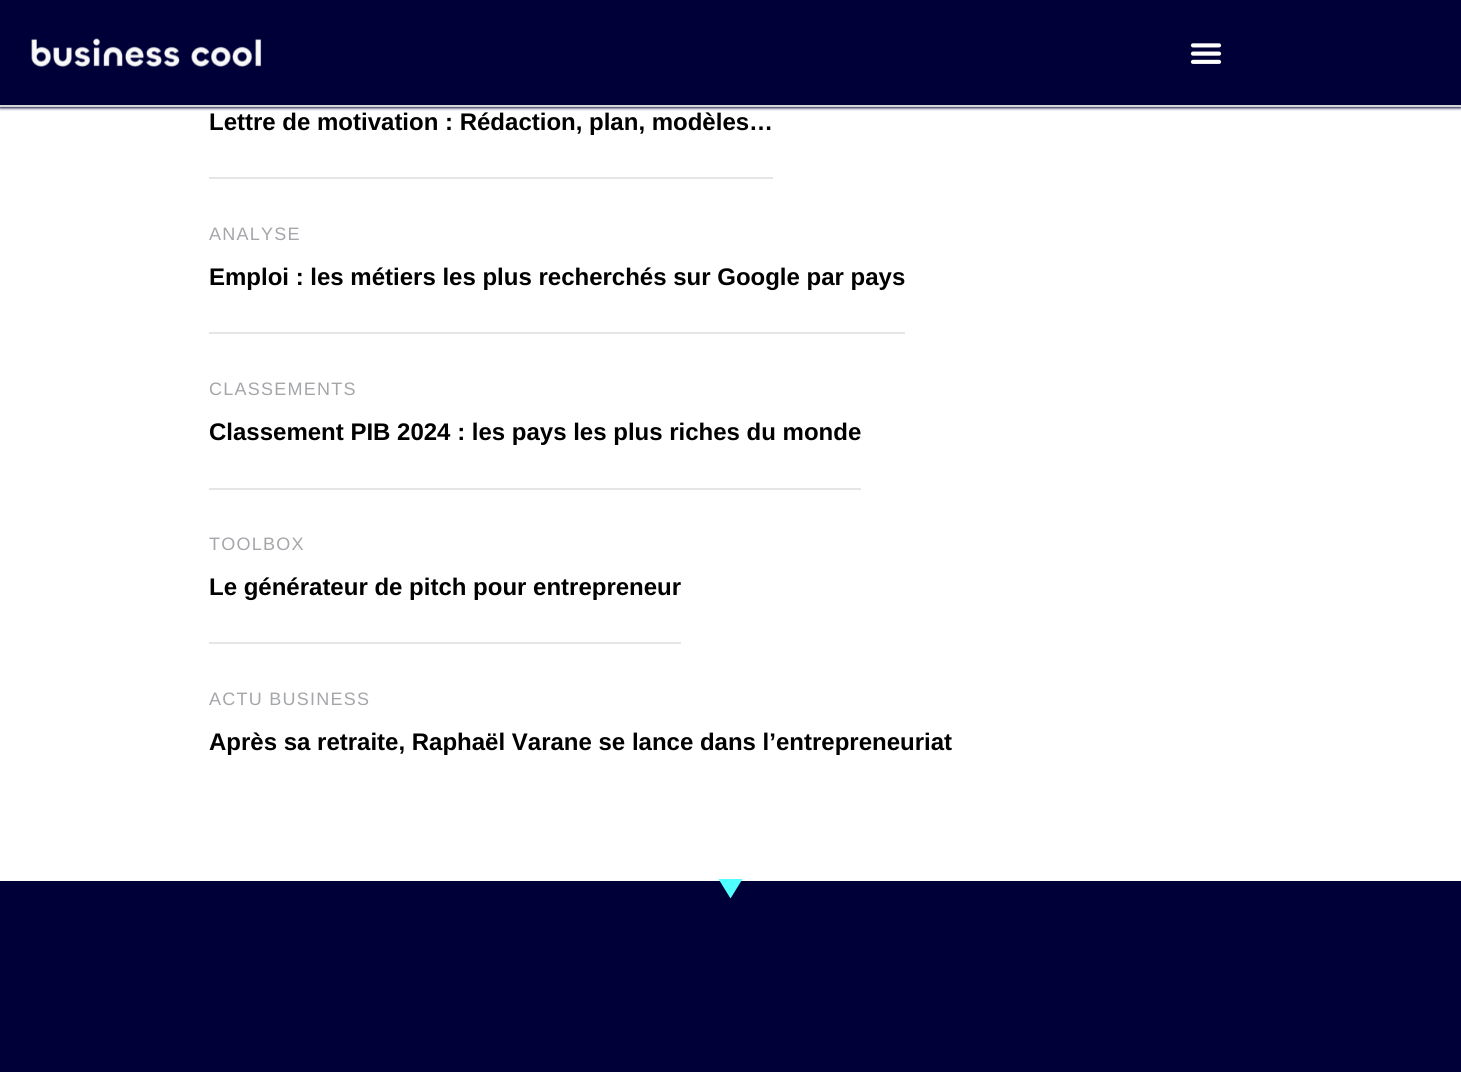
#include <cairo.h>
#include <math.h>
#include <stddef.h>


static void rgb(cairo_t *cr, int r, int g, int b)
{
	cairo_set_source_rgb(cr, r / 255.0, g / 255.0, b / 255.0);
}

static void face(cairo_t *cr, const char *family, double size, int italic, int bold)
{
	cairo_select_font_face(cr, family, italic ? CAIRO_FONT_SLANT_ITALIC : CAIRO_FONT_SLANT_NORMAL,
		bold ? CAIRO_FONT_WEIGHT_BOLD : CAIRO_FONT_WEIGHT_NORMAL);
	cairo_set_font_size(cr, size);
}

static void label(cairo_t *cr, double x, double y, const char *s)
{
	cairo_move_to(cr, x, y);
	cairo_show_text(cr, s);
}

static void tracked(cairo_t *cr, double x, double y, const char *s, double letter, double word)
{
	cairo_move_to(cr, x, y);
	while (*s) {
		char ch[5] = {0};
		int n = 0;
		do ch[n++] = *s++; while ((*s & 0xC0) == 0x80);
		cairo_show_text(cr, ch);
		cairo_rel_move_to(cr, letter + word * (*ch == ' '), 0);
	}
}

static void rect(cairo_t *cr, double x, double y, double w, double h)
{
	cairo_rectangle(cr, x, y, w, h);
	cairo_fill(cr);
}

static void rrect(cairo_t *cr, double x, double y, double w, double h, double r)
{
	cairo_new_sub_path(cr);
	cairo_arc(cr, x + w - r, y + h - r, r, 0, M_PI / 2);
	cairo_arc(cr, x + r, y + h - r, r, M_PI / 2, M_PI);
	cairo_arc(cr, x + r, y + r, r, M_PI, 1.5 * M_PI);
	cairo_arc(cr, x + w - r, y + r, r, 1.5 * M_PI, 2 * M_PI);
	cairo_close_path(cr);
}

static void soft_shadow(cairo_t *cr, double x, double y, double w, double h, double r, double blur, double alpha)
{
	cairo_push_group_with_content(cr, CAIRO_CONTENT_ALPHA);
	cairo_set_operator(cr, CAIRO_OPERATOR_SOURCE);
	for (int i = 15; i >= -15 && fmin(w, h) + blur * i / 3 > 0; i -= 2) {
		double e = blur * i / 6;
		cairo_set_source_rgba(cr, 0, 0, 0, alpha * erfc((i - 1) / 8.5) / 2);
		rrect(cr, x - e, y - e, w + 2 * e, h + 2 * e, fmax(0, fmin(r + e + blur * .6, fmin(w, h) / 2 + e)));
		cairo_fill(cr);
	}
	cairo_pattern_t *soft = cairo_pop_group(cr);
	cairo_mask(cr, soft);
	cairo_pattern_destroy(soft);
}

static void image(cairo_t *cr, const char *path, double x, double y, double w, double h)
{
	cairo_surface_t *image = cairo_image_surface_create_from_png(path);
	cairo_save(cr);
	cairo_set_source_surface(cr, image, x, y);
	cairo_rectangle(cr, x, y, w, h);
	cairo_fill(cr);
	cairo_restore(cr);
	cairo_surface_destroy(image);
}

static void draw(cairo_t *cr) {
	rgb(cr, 255, 255, 255);
	cairo_paint(cr);
	rgb(cr, 0, 0, 56);
	soft_shadow(cr, 0, 2, 1461, 106, 0, 1.5, 1);
	rgb(cr, 0, 0, 56);
	rect(cr, 0, 0, 1461, 105);
	rgb(cr, 214, 214, 214);
	rect(cr, 0, 105, 1461, 2);
	image(cr, "image0.png", 31, 38, 231, 29);
	image(cr, "image1.png", 1190, 43, 32, 21);
	rgb(cr, 229, 229, 229);
	rect(cr, 209, 177, 564, 2);
	face(cr, "Liberation Sans", 24, 0, 1);
	rgb(cr, 0, 0, 0);
	label(cr, 209, 130, "Lettre de motivation : Rédaction, plan, modèles…");
	rgb(cr, 229, 229, 229);
	rect(cr, 209, 332, 696, 2);
	face(cr, "Liberation Sans", 18, 0, 0);
	rgb(cr, 165, 166, 170);
	tracked(cr, 209, 240, "ANALYSE", 1.25, 0);
	face(cr, "Liberation Sans", 24, 0, 1);
	rgb(cr, 0, 0, 0);
	label(cr, 209, 285, "Emploi : les métiers les plus recherchés sur Google par pays");
	rgb(cr, 229, 229, 229);
	rect(cr, 209, 488, 652, 2);
	face(cr, "Liberation Sans", 18, 0, 0);
	rgb(cr, 165, 166, 170);
	tracked(cr, 209, 395, "CLASSEMENTS", 1.25, 0);
	face(cr, "Liberation Sans", 24, 0, 1);
	rgb(cr, 0, 0, 0);
	label(cr, 209, 440, "Classement PIB 2024 : les pays les plus riches du monde");
	rgb(cr, 229, 229, 229);
	rect(cr, 209, 642, 472, 2);
	face(cr, "Liberation Sans", 18, 0, 0);
	rgb(cr, 165, 166, 170);
	tracked(cr, 209, 550, "TOOLBOX", 1.25, 0);
	face(cr, "Liberation Sans", 24, 0, 1);
	rgb(cr, 0, 0, 0);
	label(cr, 209, 595, "Le générateur de pitch pour entrepreneur");
	face(cr, "Liberation Sans", 18, 0, 0);
	rgb(cr, 165, 166, 170);
	tracked(cr, 209, 705, "ACTU BUSINESS", 1.25, 0);
	face(cr, "Liberation Sans", 24, 0, 1);
	rgb(cr, 0, 0, 0);
	label(cr, 209, 750, "Après sa retraite, Raphaël Varane se lance dans l’entrepreneuriat");
	rgb(cr, 0, 0, 56);
	rect(cr, 0, 881, 1461, 191);
	rgb(cr, 80, 255, 255);
	cairo_new_path(cr);
	cairo_move_to(cr, 730.5, 898.5);
	cairo_line_to(cr, 718.5, 879);
	cairo_line_to(cr, 742.5, 879);
	cairo_close_path(cr);
	cairo_fill(cr);
}

int main(void) {
	cairo_surface_t *surface = cairo_image_surface_create(CAIRO_FORMAT_RGB24, 1461, 1072);
	cairo_t *cr = cairo_create(surface);
	cairo_font_options_t *options = cairo_font_options_create();
	cairo_font_options_set_hint_metrics(options, CAIRO_HINT_METRICS_OFF);
	cairo_font_options_set_hint_style(options, CAIRO_HINT_STYLE_NONE);
	cairo_set_font_options(cr, options);
	cairo_set_miter_limit(cr, 4);
	draw(cr);
	cairo_surface_write_to_png(surface, "render.png");
	cairo_font_options_destroy(options);
	cairo_destroy(cr);
	cairo_surface_destroy(surface);
	return 0;
}
